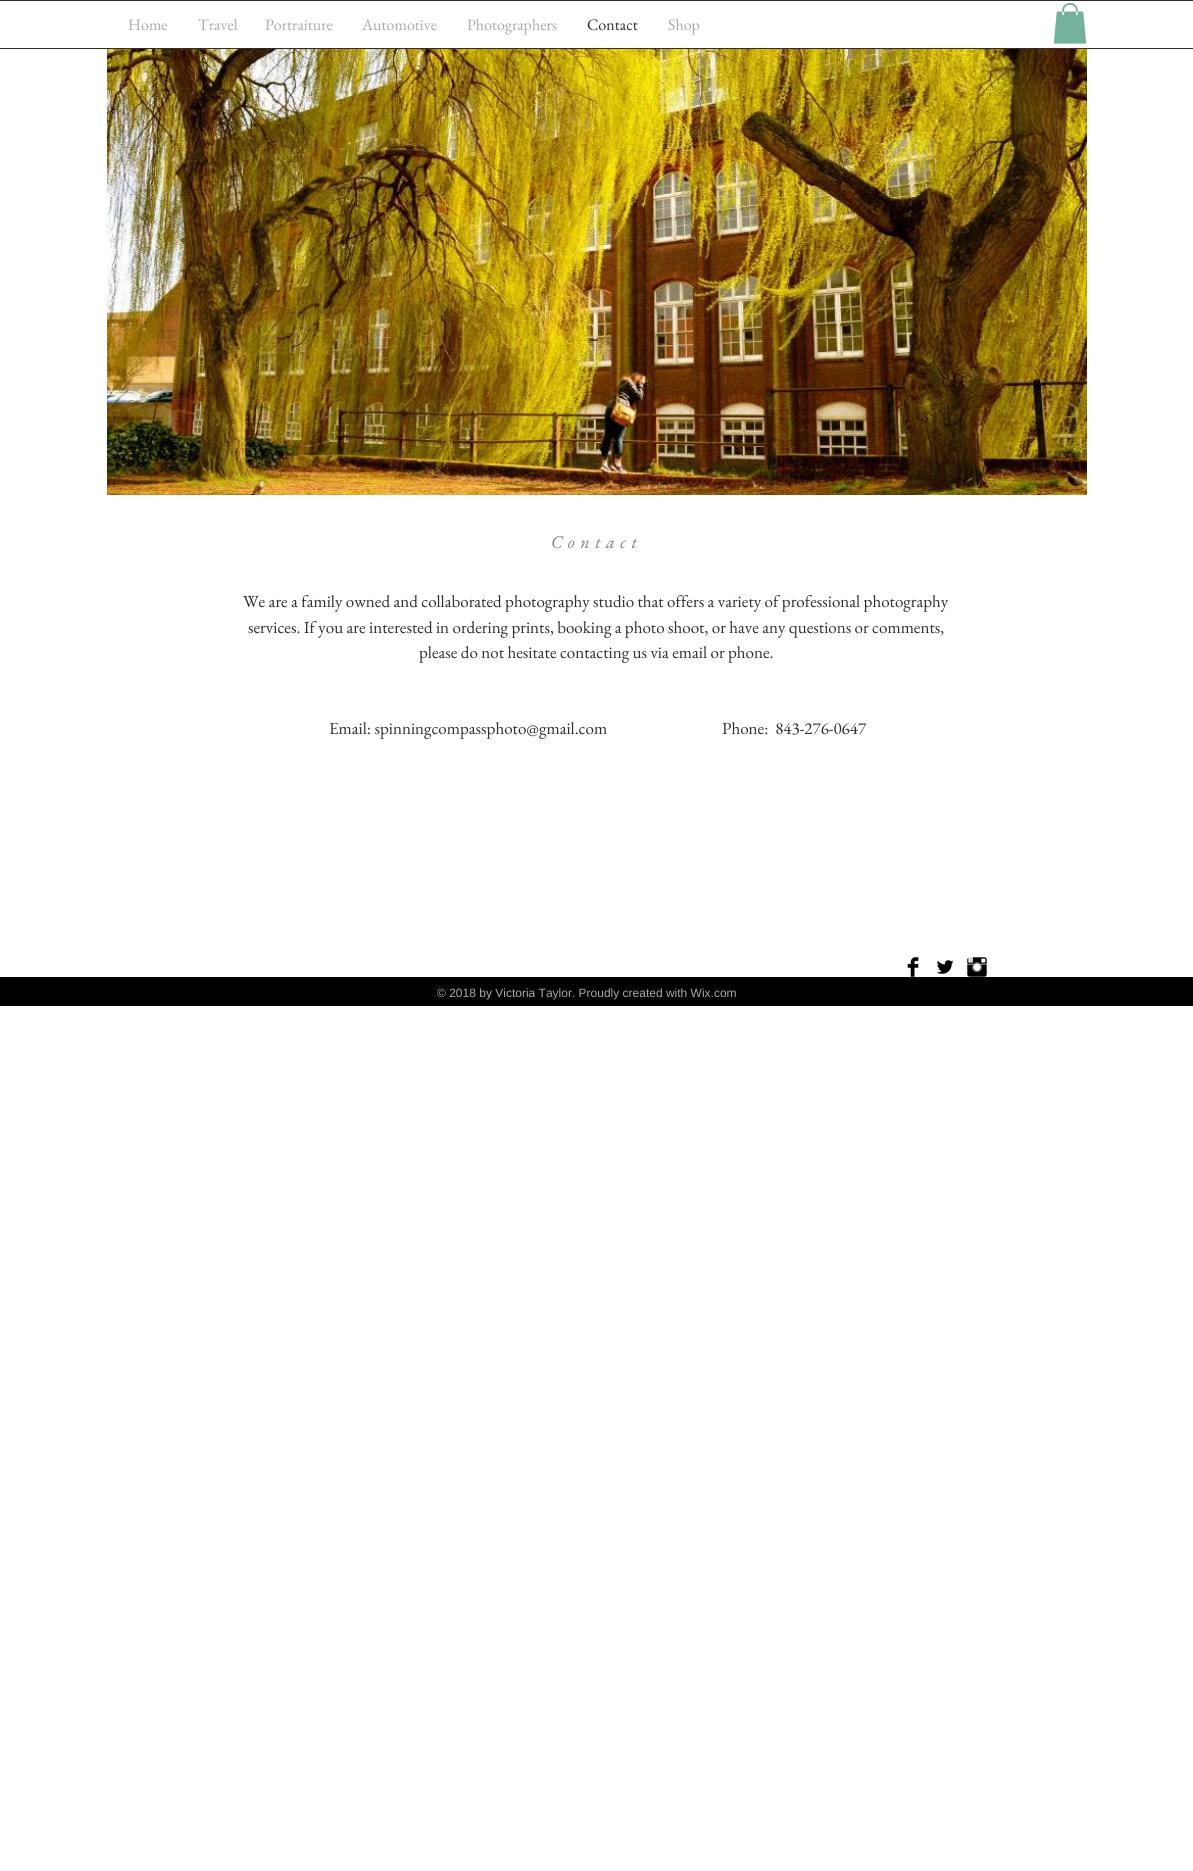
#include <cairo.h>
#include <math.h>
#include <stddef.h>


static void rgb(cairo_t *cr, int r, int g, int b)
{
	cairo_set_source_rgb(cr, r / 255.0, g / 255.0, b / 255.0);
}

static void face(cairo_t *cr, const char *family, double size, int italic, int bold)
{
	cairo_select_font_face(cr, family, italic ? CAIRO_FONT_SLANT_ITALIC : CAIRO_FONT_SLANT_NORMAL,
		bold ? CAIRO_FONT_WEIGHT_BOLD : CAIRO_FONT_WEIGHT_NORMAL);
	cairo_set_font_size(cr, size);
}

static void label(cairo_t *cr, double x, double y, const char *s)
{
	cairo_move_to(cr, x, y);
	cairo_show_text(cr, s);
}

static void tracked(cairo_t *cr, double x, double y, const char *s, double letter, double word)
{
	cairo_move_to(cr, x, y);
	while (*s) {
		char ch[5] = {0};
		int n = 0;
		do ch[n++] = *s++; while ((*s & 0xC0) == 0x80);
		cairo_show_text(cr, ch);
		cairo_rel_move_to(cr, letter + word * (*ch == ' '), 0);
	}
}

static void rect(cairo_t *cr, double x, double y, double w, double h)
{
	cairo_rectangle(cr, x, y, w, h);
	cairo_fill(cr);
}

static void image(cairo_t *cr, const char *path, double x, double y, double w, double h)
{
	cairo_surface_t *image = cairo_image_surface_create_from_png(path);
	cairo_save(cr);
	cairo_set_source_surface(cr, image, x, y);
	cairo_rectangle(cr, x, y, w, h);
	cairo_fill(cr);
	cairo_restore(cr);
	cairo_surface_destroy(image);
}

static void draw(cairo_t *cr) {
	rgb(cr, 255, 255, 255);
	cairo_paint(cr);
	rgb(cr, 48, 45, 45);
	rect(cr, 0, 0, 1193, 1);
	rect(cr, 0, 48, 1193, 1);
	face(cr, "EB Garamond", 16, 0, 0);
	rgb(cr, 170, 170, 170);
	label(cr, 128, 30, "Home");
	label(cr, 198, 30, "Travel");
	label(cr, 265, 30, "Portraiture");
	label(cr, 362, 30, "Automotive");
	label(cr, 467, 30, "Photographers");
	rgb(cr, 48, 45, 45);
	label(cr, 587, 30, "Contact");
	rgb(cr, 170, 170, 170);
	label(cr, 668, 30, "Shop");
	image(cr, "image0.png", 1053, 3, 34, 41);
	image(cr, "image1.png", 107, 49, 980, 446);
	face(cr, "EB Garamond", 18, 1, 0);
	rgb(cr, 129, 129, 129);
	tracked(cr, 551, 548, "Contact", 5.5, 0);
	face(cr, "EB Garamond", 17, 0, 0);
	rgb(cr, 48, 45, 45);
	label(cr, 243, 607, "We are a family owned and collaborated photography studio that offers a variety of professional photography");
	label(cr, 248, 633, "services. If you are interested in ordering prints, booking a photo shoot, or have any questions or comments,");
	label(cr, 419, 658, "please do not hesitate contacting us via email or phone.");
	label(cr, 329, 734, "Email: spinningcompassphoto@gmail.com");
	label(cr, 722, 734, "Phone:  843-276-0647");
	image(cr, "image2.png", 907, 957, 12, 20);
	image(cr, "image3.png", 936, 960, 18, 14);
	image(cr, "image4.png", 967, 957, 20, 20);
	rgb(cr, 0, 0, 0);
	rect(cr, 0, 977, 1193, 29);
	face(cr, "Liberation Sans", 12, 0, 0);
	rgb(cr, 170, 170, 170);
	label(cr, 437, 997, "© 2018 by Victoria Taylor. Proudly created with Wix.com");
}

int main(void) {
	cairo_surface_t *surface = cairo_image_surface_create(CAIRO_FORMAT_RGB24, 1193, 1871);
	cairo_t *cr = cairo_create(surface);
	cairo_font_options_t *options = cairo_font_options_create();
	cairo_font_options_set_hint_metrics(options, CAIRO_HINT_METRICS_OFF);
	cairo_font_options_set_hint_style(options, CAIRO_HINT_STYLE_NONE);
	cairo_set_font_options(cr, options);
	cairo_set_miter_limit(cr, 4);
	draw(cr);
	cairo_surface_write_to_png(surface, "render.png");
	cairo_font_options_destroy(options);
	cairo_destroy(cr);
	cairo_surface_destroy(surface);
	return 0;
}
